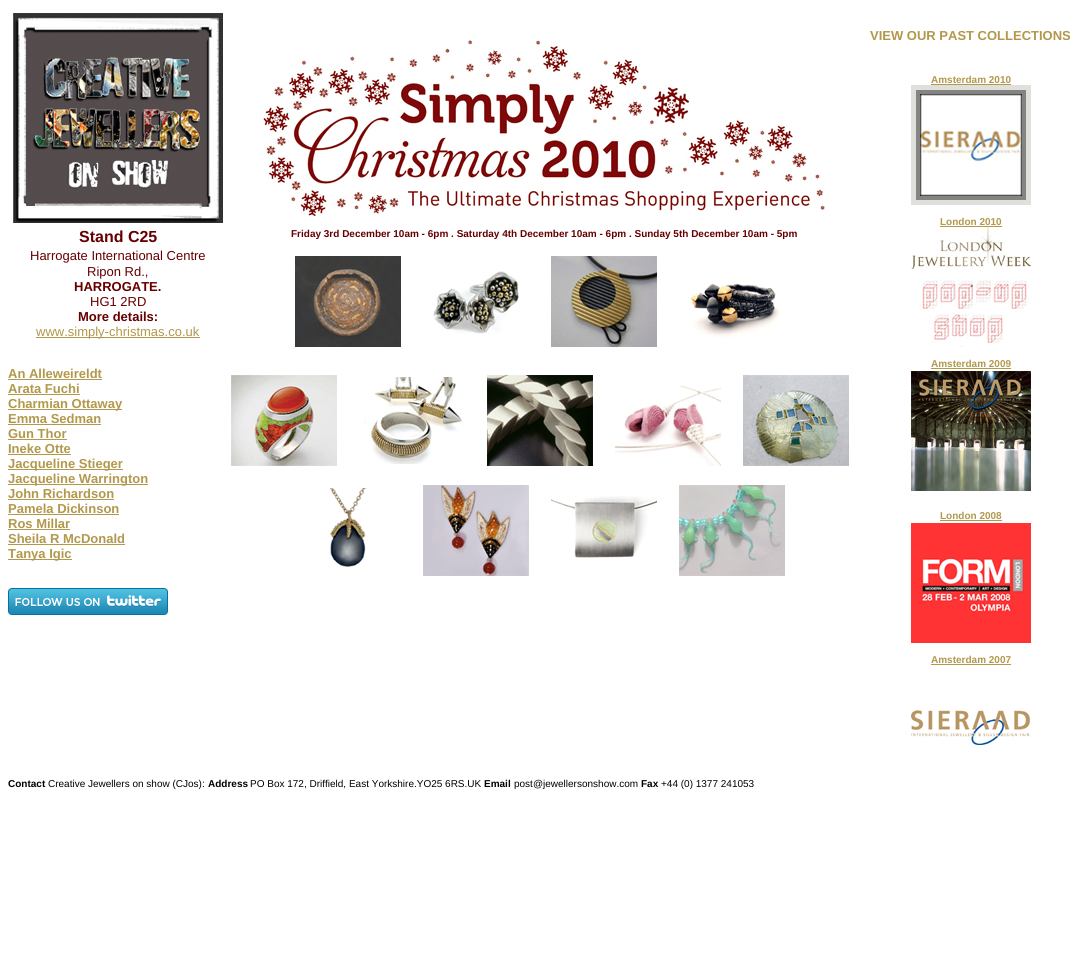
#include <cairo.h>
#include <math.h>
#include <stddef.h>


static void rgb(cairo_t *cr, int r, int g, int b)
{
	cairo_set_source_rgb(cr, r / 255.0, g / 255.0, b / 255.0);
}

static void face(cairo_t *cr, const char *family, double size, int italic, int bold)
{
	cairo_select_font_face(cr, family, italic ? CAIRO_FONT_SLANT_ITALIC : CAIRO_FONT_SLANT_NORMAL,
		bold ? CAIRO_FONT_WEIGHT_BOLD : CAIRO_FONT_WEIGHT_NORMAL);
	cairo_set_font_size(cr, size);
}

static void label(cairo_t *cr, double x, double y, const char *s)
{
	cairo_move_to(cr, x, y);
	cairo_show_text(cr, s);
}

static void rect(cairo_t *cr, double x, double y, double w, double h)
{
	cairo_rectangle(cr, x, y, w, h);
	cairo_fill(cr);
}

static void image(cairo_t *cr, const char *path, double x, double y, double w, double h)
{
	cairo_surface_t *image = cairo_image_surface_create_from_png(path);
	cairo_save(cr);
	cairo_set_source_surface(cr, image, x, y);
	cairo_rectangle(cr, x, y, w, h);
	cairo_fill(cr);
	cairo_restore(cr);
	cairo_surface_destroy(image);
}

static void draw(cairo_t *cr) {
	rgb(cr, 255, 255, 255);
	cairo_paint(cr);
	image(cr, "image0.png", 13, 13, 210, 210);
	face(cr, "Liberation Sans", 13, 0, 1);
	rgb(cr, 177, 152, 75);
	label(cr, 870, 40, "VIEW OUR PAST COLLECTIONS");
	image(cr, "image1.png", 260, 38, 565, 179);
	face(cr, "Liberation Sans", 10, 0, 1);
	label(cr, 931, 83, "Amsterdam 2010");
	rect(cr, 931, 84, 80, 1);
	image(cr, "image2.png", 911, 85, 120, 120);
	label(cr, 940, 225, "London 2010");
	rect(cr, 940, 226, 62, 1);
	face(cr, "Liberation Sans", 16, 0, 1);
	rgb(cr, 102, 0, 0);
	label(cr, 79, 242, "Stand C25");
	face(cr, "Liberation Sans", 13, 0, 0);
	label(cr, 30, 260, "Harrogate International Centre");
	label(cr, 87, 276, "Ripon Rd.,");
	face(cr, "Liberation Sans", 13, 0, 1);
	label(cr, 74, 291, "HARROGATE.");
	face(cr, "Liberation Sans", 13, 0, 0);
	label(cr, 90, 306, "HG1 2RD");
	face(cr, "Liberation Sans", 13, 0, 1);
	label(cr, 78, 321, "More details:");
	rgb(cr, 177, 152, 75);
	rect(cr, 36, 337, 164, 1);
	face(cr, "Liberation Sans", 13, 0, 0);
	label(cr, 36, 336, "www.simply-christmas.co.uk");
	face(cr, "Liberation Sans", 10, 0, 1);
	rgb(cr, 102, 0, 0);
	label(cr, 291, 237, "Friday 3rd December 10am - 6pm . Saturday 4th December 10am - 6pm . Sunday 5th December 10am - 5pm");
	image(cr, "image3.png", 911, 227, 120, 120);
	image(cr, "image4.png", 295, 256, 106, 91);
	image(cr, "image5.png", 433, 271, 86, 64);
	image(cr, "image6.png", 551, 256, 106, 91);
	image(cr, "image7.png", 691, 283, 90, 55);
	rgb(cr, 177, 152, 75);
	label(cr, 931, 367, "Amsterdam 2009");
	rect(cr, 931, 368, 80, 1);
	face(cr, "Liberation Sans", 13, 0, 1);
	label(cr, 8, 378, "An Alleweireldt");
	rect(cr, 8, 379, 94, 1);
	label(cr, 8, 393, "Arata Fuchi");
	rect(cr, 8, 394, 72, 1);
	rect(cr, 8, 409, 114, 1);
	label(cr, 8, 408, "Charmian Ottaway");
	label(cr, 8, 423, "Emma Sedman");
	rect(cr, 8, 424, 93, 1);
	label(cr, 8, 438, "Gun Thor");
	rect(cr, 8, 439, 59, 1);
	label(cr, 8, 453, "Ineke Otte");
	rect(cr, 8, 454, 63, 1);
	rect(cr, 8, 469, 115, 1);
	label(cr, 8, 468, "Jacqueline Stieger");
	rect(cr, 8, 484, 140, 1);
	label(cr, 8, 483, "Jacqueline Warrington");
	label(cr, 8, 498, "John Richardson");
	rect(cr, 8, 499, 106, 1);
	label(cr, 8, 513, "Pamela Dickinson");
	rect(cr, 8, 514, 111, 1);
	label(cr, 8, 528, "Ros Millar");
	rect(cr, 8, 529, 62, 1);
	label(cr, 8, 543, "Sheila R McDonald");
	rect(cr, 8, 544, 117, 1);
	rect(cr, 8, 559, 64, 1);
	label(cr, 8, 558, "Tanya Igic");
	image(cr, "image8.png", 231, 375, 106, 91);
	image(cr, "image9.png", 364, 377, 98, 87);
	image(cr, "image10.png", 487, 375, 106, 91);
	image(cr, "image11.png", 615, 375, 106, 91);
	image(cr, "image12.png", 743, 375, 106, 91);
	image(cr, "image13.png", 911, 371, 120, 120);
	image(cr, "image14.png", 329, 488, 38, 79);
	image(cr, "image15.png", 423, 485, 106, 91);
	image(cr, "image16.png", 551, 496, 106, 62);
	image(cr, "image17.png", 679, 485, 106, 91);
	face(cr, "Liberation Sans", 10, 0, 1);
	label(cr, 940, 519, "London 2008");
	rect(cr, 940, 520, 62, 1);
	image(cr, "image18.png", 8, 588, 160, 27);
	image(cr, "image19.png", 911, 523, 120, 120);
	label(cr, 931, 663, "Amsterdam 2007");
	rect(cr, 931, 664, 80, 1);
	image(cr, "image20.png", 911, 710, 120, 35);
	rgb(cr, 0, 0, 0);
	label(cr, 8, 787, "Contact");
	face(cr, "Liberation Sans", 10, 0, 0);
	label(cr, 48, 787, "Creative Jewellers on show (CJos):");
	face(cr, "Liberation Sans", 10, 0, 1);
	label(cr, 208, 787, "Address");
	face(cr, "Liberation Sans", 10, 0, 0);
	label(cr, 250, 787, "PO Box 172, Driffield, East Yorkshire.YO25 6RS.UK");
	face(cr, "Liberation Sans", 10, 0, 1);
	label(cr, 484, 787, "Email");
	face(cr, "Liberation Sans", 10, 0, 0);
	label(cr, 514, 787, "post@jewellersonshow.com");
	face(cr, "Liberation Sans", 10, 0, 1);
	label(cr, 641, 787, "Fax");
	face(cr, "Liberation Sans", 10, 0, 0);
	label(cr, 661, 787, "+44 (0) 1377 241053");
}

int main(void) {
	cairo_surface_t *surface = cairo_image_surface_create(CAIRO_FORMAT_RGB24, 1070, 974);
	cairo_t *cr = cairo_create(surface);
	cairo_font_options_t *options = cairo_font_options_create();
	cairo_font_options_set_hint_metrics(options, CAIRO_HINT_METRICS_OFF);
	cairo_font_options_set_hint_style(options, CAIRO_HINT_STYLE_NONE);
	cairo_set_font_options(cr, options);
	cairo_set_miter_limit(cr, 4);
	draw(cr);
	cairo_surface_write_to_png(surface, "render.png");
	cairo_font_options_destroy(options);
	cairo_destroy(cr);
	cairo_surface_destroy(surface);
	return 0;
}
